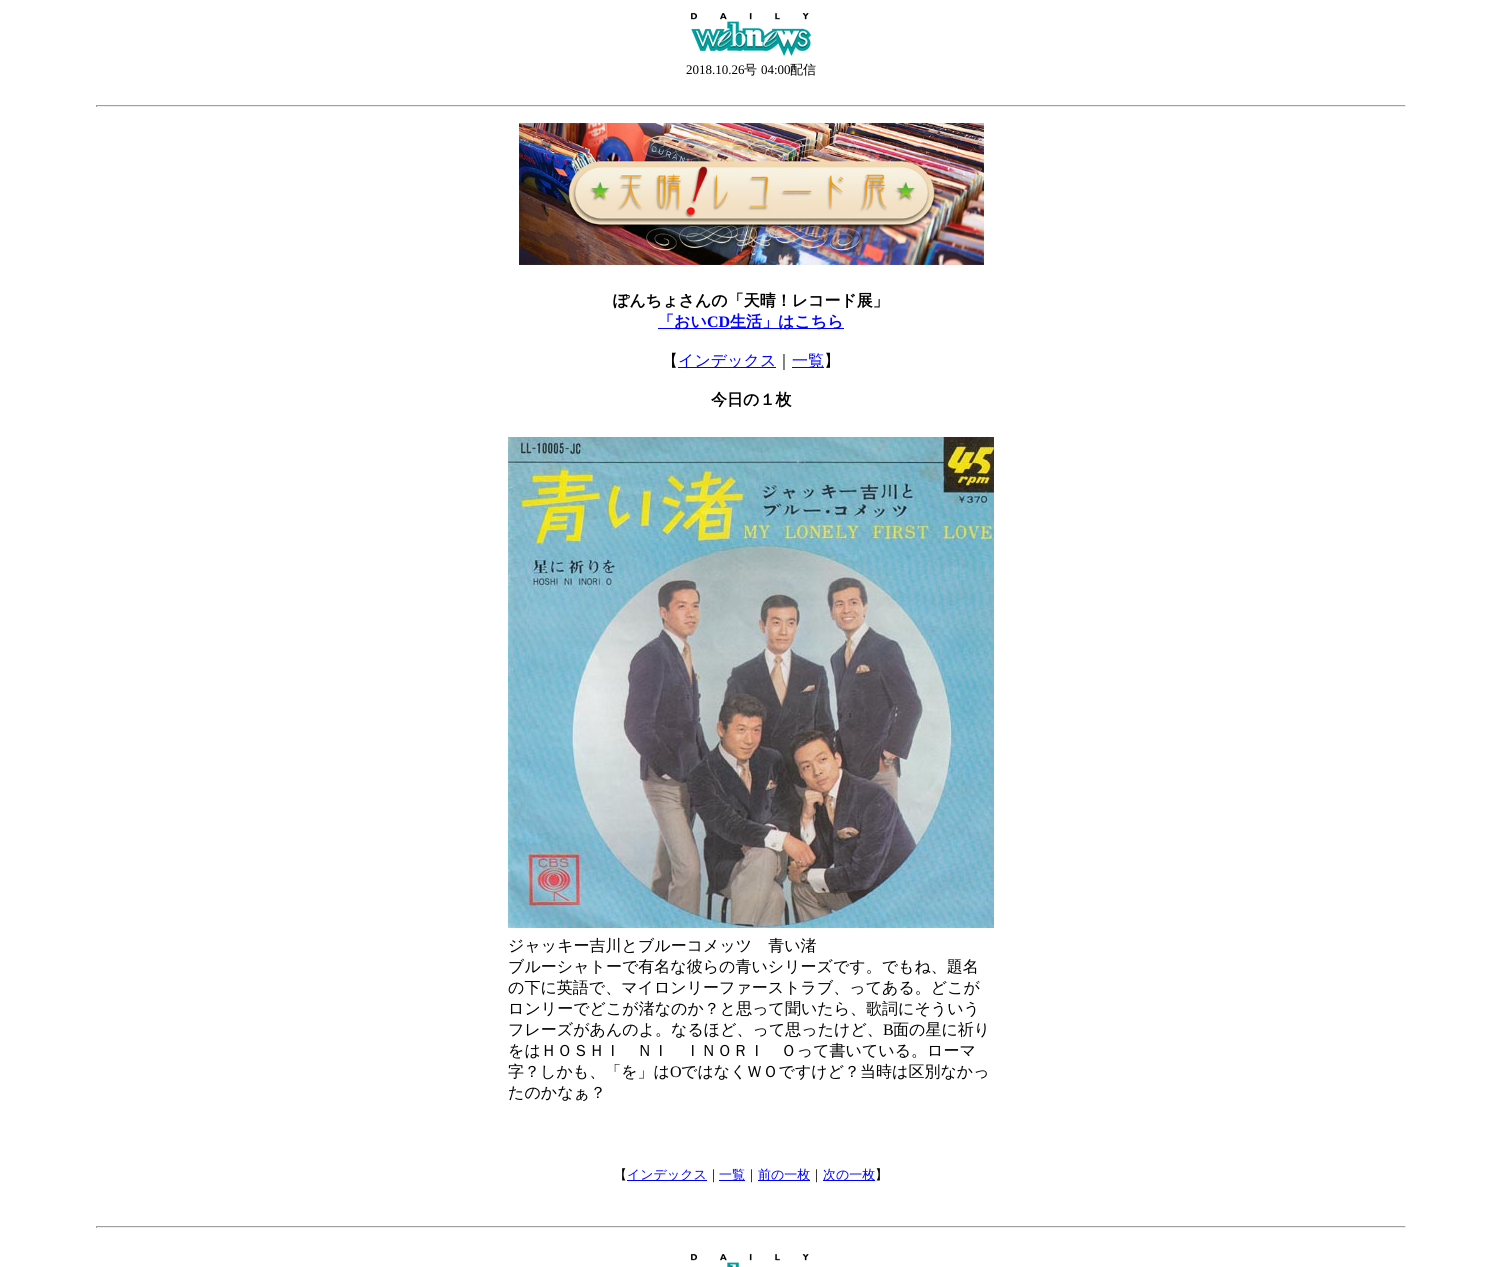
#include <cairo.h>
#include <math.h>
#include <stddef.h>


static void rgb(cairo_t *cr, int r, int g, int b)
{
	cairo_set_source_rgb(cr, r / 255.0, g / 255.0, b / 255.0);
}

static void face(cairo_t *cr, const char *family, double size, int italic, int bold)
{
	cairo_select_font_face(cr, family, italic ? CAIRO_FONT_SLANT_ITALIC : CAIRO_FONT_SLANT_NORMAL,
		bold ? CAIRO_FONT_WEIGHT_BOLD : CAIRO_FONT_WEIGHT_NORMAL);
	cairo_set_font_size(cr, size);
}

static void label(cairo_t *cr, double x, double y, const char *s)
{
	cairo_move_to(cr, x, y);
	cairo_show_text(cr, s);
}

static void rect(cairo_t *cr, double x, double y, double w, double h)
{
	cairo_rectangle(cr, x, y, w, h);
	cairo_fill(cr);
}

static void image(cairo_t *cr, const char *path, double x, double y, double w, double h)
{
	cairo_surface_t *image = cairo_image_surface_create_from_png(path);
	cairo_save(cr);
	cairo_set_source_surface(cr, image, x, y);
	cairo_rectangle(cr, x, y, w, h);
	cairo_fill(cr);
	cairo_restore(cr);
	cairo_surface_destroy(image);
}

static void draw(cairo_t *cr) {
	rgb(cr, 255, 255, 255);
	cairo_paint(cr);
	image(cr, "image0.png", 691, 13, 120, 43);
	face(cr, "Liberation Serif", 13, 0, 0);
	rgb(cr, 0, 0, 0);
	label(cr, 686, 74, "2018.10.26");
	face(cr, "WenQuanYi Zen Hei Medium", 13, 0, 0);
	label(cr, 744, 74, "号");
	face(cr, "Liberation Serif", 13, 0, 0);
	label(cr, 761, 74, "04:00");
	face(cr, "WenQuanYi Zen Hei Medium", 13, 0, 0);
	label(cr, 790, 74, "配信");
	rgb(cr, 159, 159, 159);
	rect(cr, 96, 105, 1310, 1);
	rgb(cr, 238, 238, 238);
	rect(cr, 1405, 105, 1, 2);
	rect(cr, 96, 106, 1310, 1);
	rgb(cr, 159, 159, 159);
	rect(cr, 96, 105, 1, 2);
	image(cr, "image1.png", 519, 123, 465, 142);
	face(cr, "WenQuanYi Zen Hei", 16, 0, 1);
	rgb(cr, 0, 0, 0);
	label(cr, 613, 306, "ぽんちょさんの「天晴！レコード展」");
	rgb(cr, 0, 0, 255);
	rect(cr, 658, 328, 186, 1);
	label(cr, 658, 327, "「おい");
	face(cr, "Liberation Serif", 16, 0, 1);
	label(cr, 707, 327, "CD");
	face(cr, "WenQuanYi Zen Hei", 16, 0, 1);
	label(cr, 730, 327, "生活」はこちら");
	face(cr, "WenQuanYi Zen Hei Medium", 16, 0, 0);
	rgb(cr, 0, 0, 0);
	label(cr, 662, 366, "【");
	rgb(cr, 0, 0, 255);
	rect(cr, 678, 367, 98, 1);
	label(cr, 678, 366, "インデックス");
	rgb(cr, 0, 0, 0);
	label(cr, 776, 366, "｜");
	rgb(cr, 0, 0, 255);
	rect(cr, 792, 367, 32, 1);
	label(cr, 792, 366, "一覧");
	rgb(cr, 0, 0, 0);
	label(cr, 824, 366, "】");
	face(cr, "WenQuanYi Zen Hei", 16, 0, 1);
	label(cr, 711, 405, "今日の１枚");
	image(cr, "image2.png", 508, 437, 486, 491);
	face(cr, "WenQuanYi Zen Hei Medium", 16, 0, 0);
	label(cr, 508, 951, "ジャッキー吉川とブルーコメッツ　青い渚");
	label(cr, 508, 972, "ブルーシャトーで有名な彼らの青いシリーズです。でもね、題名");
	label(cr, 508, 993, "の下に英語で、マイロンリーファーストラブ、ってある。どこが");
	label(cr, 508, 1014, "ロンリーでどこが渚なのか？と思って聞いたら、歌詞にそういう");
	label(cr, 508, 1035, "フレーズがあんのよ。なるほど、って思ったけど、");
	face(cr, "Liberation Serif", 16, 0, 0);
	label(cr, 883, 1035, "B");
	face(cr, "WenQuanYi Zen Hei Medium", 16, 0, 0);
	label(cr, 893, 1035, "面の星に祈り");
	label(cr, 508, 1056, "をはＨＯＳＨＩ　ＮＩ　ＩＮＯＲＩ　Ｏって書いている。ローマ");
	label(cr, 508, 1077, "字？しかも、「を」は");
	face(cr, "Liberation Serif", 16, 0, 0);
	label(cr, 670, 1077, "O");
	face(cr, "WenQuanYi Zen Hei Medium", 16, 0, 0);
	label(cr, 681, 1077, "ではなくＷＯですけど？当時は区別なかっ");
	label(cr, 508, 1098, "たのかなぁ？");
	face(cr, "WenQuanYi Zen Hei Medium", 13, 0, 0);
	label(cr, 614, 1179, "【");
	rgb(cr, 0, 0, 255);
	rect(cr, 627, 1180, 80, 1);
	label(cr, 627, 1179, "インデックス");
	rgb(cr, 0, 0, 0);
	label(cr, 707, 1179, "｜");
	rgb(cr, 0, 0, 255);
	rect(cr, 719, 1180, 26, 1);
	label(cr, 719, 1179, "一覧");
	rgb(cr, 0, 0, 0);
	label(cr, 745, 1179, "｜");
	rgb(cr, 0, 0, 255);
	rect(cr, 758, 1180, 52, 1);
	label(cr, 758, 1179, "前の一枚");
	rgb(cr, 0, 0, 0);
	label(cr, 810, 1179, "｜");
	rgb(cr, 0, 0, 255);
	rect(cr, 823, 1180, 52, 1);
	label(cr, 823, 1179, "次の一枚");
	rgb(cr, 0, 0, 0);
	label(cr, 875, 1179, "】");
	rgb(cr, 159, 159, 159);
	rect(cr, 96, 1226, 1310, 1);
	rgb(cr, 238, 238, 238);
	rect(cr, 1405, 1226, 1, 2);
	rect(cr, 96, 1227, 1310, 1);
	rgb(cr, 159, 159, 159);
	rect(cr, 96, 1226, 1, 2);
	image(cr, "image3.png", 691, 1254, 118, 13);
}

int main(void) {
	cairo_surface_t *surface = cairo_image_surface_create(CAIRO_FORMAT_RGB24, 1502, 1267);
	cairo_t *cr = cairo_create(surface);
	cairo_font_options_t *options = cairo_font_options_create();
	cairo_font_options_set_hint_metrics(options, CAIRO_HINT_METRICS_OFF);
	cairo_font_options_set_hint_style(options, CAIRO_HINT_STYLE_NONE);
	cairo_set_font_options(cr, options);
	cairo_set_miter_limit(cr, 4);
	draw(cr);
	cairo_surface_write_to_png(surface, "render.png");
	cairo_font_options_destroy(options);
	cairo_destroy(cr);
	cairo_surface_destroy(surface);
	return 0;
}
